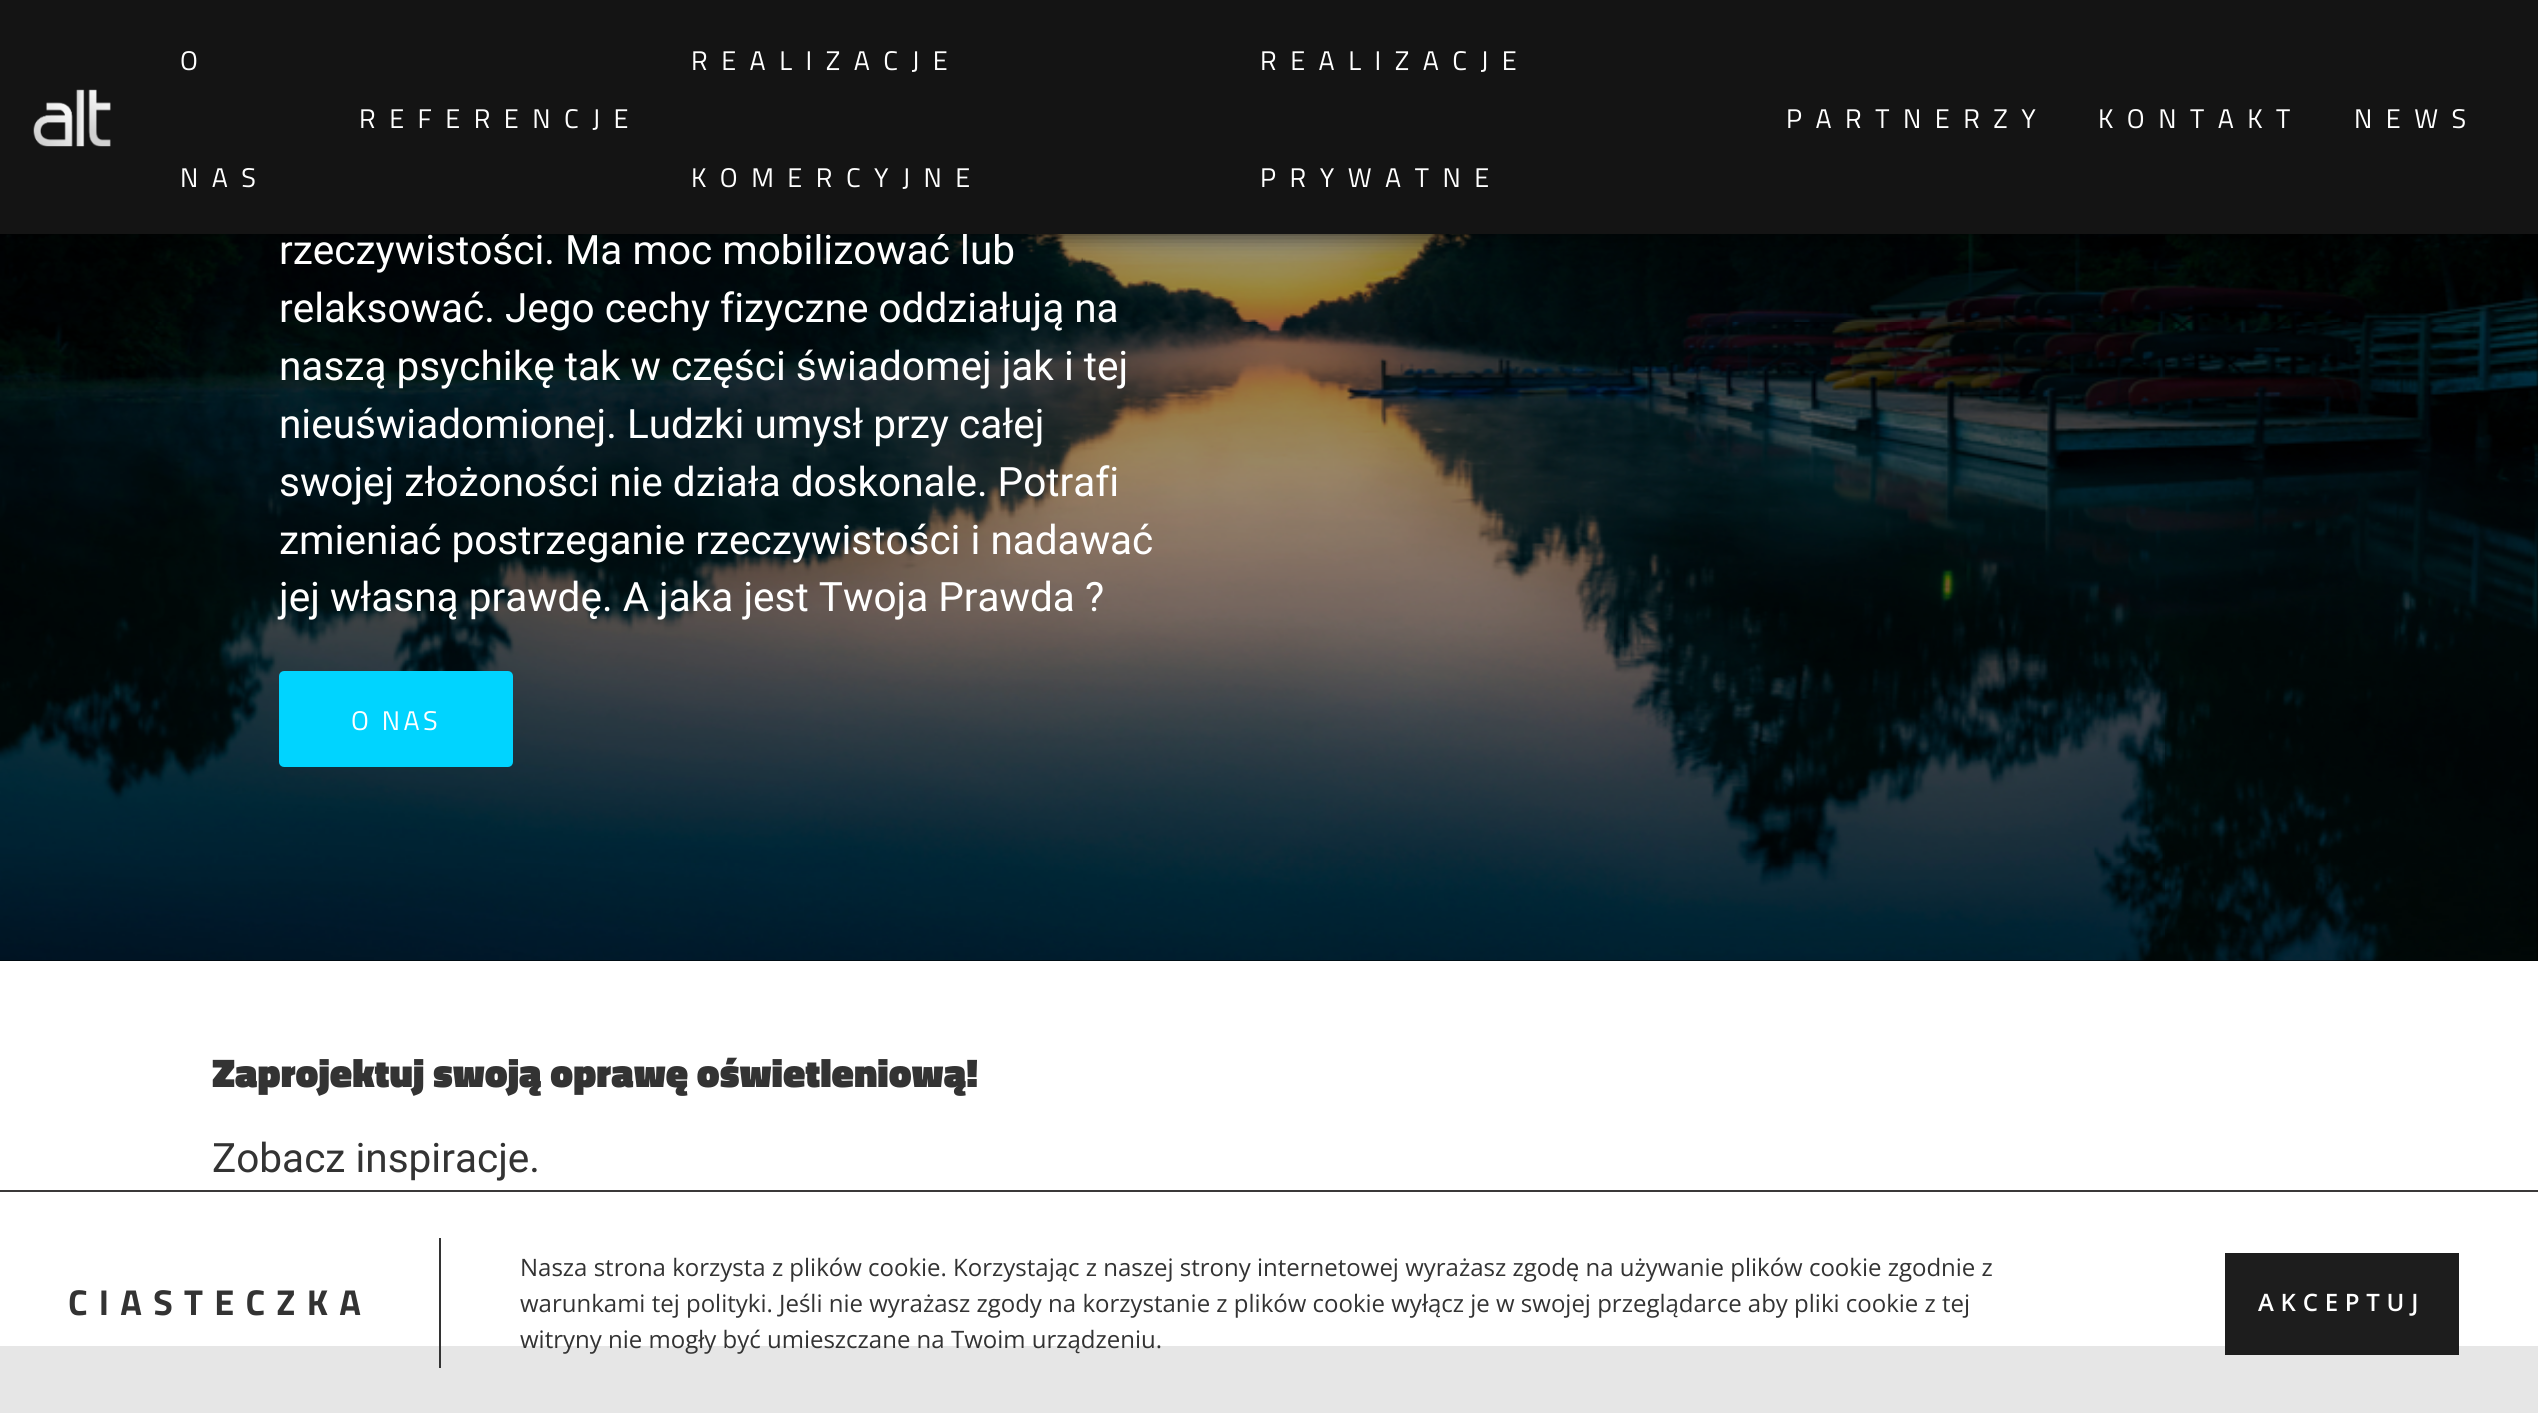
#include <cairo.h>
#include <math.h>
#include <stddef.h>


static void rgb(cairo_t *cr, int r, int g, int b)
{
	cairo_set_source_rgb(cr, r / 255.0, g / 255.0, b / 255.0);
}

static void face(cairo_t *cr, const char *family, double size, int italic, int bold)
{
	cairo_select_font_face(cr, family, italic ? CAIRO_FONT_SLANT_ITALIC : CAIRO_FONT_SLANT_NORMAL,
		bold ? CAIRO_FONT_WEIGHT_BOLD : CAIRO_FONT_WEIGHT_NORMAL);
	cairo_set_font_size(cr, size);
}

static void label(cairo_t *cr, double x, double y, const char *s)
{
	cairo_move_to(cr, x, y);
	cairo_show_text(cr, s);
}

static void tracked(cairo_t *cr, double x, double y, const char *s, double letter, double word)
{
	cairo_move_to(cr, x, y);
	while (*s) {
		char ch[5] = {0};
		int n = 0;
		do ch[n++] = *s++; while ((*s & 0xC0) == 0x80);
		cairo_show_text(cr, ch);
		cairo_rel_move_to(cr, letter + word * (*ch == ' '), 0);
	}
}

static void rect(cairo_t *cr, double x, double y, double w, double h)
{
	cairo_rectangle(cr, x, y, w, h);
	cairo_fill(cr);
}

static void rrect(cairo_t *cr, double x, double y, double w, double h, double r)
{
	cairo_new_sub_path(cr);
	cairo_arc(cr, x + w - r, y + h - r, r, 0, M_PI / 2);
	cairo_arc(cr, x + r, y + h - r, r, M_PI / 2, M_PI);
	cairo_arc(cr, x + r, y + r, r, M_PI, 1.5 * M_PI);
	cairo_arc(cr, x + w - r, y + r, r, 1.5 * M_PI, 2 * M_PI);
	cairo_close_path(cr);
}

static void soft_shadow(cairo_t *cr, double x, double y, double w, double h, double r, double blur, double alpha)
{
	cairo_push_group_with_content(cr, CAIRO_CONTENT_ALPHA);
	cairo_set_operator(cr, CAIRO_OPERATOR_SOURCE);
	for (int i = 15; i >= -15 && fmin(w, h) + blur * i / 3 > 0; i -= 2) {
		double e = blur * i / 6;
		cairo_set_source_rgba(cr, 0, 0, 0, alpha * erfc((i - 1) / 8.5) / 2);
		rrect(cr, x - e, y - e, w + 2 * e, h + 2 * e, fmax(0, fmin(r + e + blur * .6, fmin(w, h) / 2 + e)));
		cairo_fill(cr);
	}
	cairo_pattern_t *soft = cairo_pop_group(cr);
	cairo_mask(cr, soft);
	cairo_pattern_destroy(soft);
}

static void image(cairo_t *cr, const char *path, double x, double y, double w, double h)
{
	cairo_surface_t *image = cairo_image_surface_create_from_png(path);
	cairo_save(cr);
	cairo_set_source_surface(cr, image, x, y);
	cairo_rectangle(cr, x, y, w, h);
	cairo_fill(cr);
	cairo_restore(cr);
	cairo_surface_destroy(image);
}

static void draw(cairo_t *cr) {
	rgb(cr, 255, 255, 255);
	cairo_paint(cr);
	rgb(cr, 0, 0, 0);
	rect(cr, 0, 234, 2538, 727);
	image(cr, "image1.png", 0, 234, 2538, 727);
	rgb(cr, 0, 0, 0);
	soft_shadow(cr, 0, 0, 2538, 234, 0, 11, 0.75);
	face(cr, "Roboto", 40.5, 0, 0);
	rgb(cr, 255, 255, 255);
	label(cr, 279, 264, "rzeczywistości. Ma moc mobilizować lub");
	rgb(cr, 20, 20, 20);
	rect(cr, 0, 0, 2538, 234);
	image(cr, "image0.png", 33, 89, 78, 58);
	face(cr, "Titillium Web", 27, 0, 0);
	rgb(cr, 255, 255, 255);
	tracked(cr, 180, 70, "O", 13.5, 0);
	tracked(cr, 180, 187, "NAS", 13.5, 0);
	tracked(cr, 359, 128, "REFERENCJE", 13.5, 0);
	tracked(cr, 691, 70, "REALIZACJE", 13.5, 0);
	tracked(cr, 691, 187, "KOMERCYJNE", 13.5, 0);
	tracked(cr, 1260, 70, "REALIZACJE", 13.5, 0);
	tracked(cr, 1260, 187, "PRYWATNE", 13.5, 0);
	tracked(cr, 1786, 128, "PARTNERZY", 13.5, 0);
	tracked(cr, 2098, 128, "KONTAKT", 13.5, 0);
	tracked(cr, 2354, 128, "NEWS", 13.5, 0);
	face(cr, "Roboto", 40.5, 0, 0);
	label(cr, 279, 322, "relaksować. Jego cechy fizyczne oddziałują na");
	label(cr, 279, 380, "naszą psychikę tak w części świadomej jak i tej");
	label(cr, 279, 438, "nieuświadomionej. Ludzki umysł przy całej");
	label(cr, 279, 496, "swojej złożoności nie działa doskonale. Potrafi");
	label(cr, 279, 554, "zmieniać postrzeganie rzeczywistości i nadawać");
	label(cr, 279, 611, "jej własną prawdę. A jaka jest Twoja Prawda ?");
	rgb(cr, 0, 212, 255);
	rrect(cr, 281.5, 673.5, 229, 91, 2.5);
	cairo_fill_preserve(cr);
	cairo_set_line_width(cr, 5);
	cairo_stroke(cr);
	face(cr, "Titillium Web", 27, 0, 0);
	rgb(cr, 255, 255, 255);
	tracked(cr, 351, 730, "O NAS", 3.5, 0);
	face(cr, "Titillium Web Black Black", 40.5, 0, 0);
	rgb(cr, 51, 51, 51);
	label(cr, 212, 1087, "Zaprojektuj swoją oprawę oświetleniową!");
	face(cr, "Roboto", 40.5, 0, 0);
	label(cr, 212, 1172, "Zobacz inspiracje.");
	rgb(cr, 230, 230, 230);
	rect(cr, 0, 1346, 2538, 67);
	rgb(cr, 59, 57, 57);
	rect(cr, 0, 1190, 2538, 2);
	rgb(cr, 51, 51, 51);
	rect(cr, 439, 1238, 2, 130);
	face(cr, "Titillium Web", 36, 0, 1);
	tracked(cr, 68, 1315, "CIASTECZKA", 11.25, 0);
	face(cr, "Open Sans", 24, 0, 0);
	label(cr, 520, 1276, "Nasza strona korzysta z plików cookie. Korzystając z naszej strony internetowej wyrażasz zgodę na używanie plików cookie zgodnie z");
	label(cr, 520, 1312, "warunkami tej polityki. Jeśli nie wyrażasz zgody na korzystanie z plików cookie wyłącz je w swojej przeglądarce aby pliki cookie z tej");
	label(cr, 520, 1348, "witryny nie mogły być umieszczane na Twoim urządzeniu.");
	rgb(cr, 29, 29, 29);
	rect(cr, 2225, 1253, 234, 102);
	face(cr, "Open Sans SemiBold", 24, 0, 0);
	rgb(cr, 255, 255, 255);
	tracked(cr, 2258, 1311, "AKCEPTUJ", 6.75, 0);
}

int main(void) {
	cairo_surface_t *surface = cairo_image_surface_create(CAIRO_FORMAT_RGB24, 2538, 1413);
	cairo_t *cr = cairo_create(surface);
	cairo_font_options_t *options = cairo_font_options_create();
	cairo_font_options_set_hint_metrics(options, CAIRO_HINT_METRICS_OFF);
	cairo_font_options_set_hint_style(options, CAIRO_HINT_STYLE_NONE);
	cairo_set_font_options(cr, options);
	cairo_set_miter_limit(cr, 4);
	draw(cr);
	cairo_surface_write_to_png(surface, "render.png");
	cairo_font_options_destroy(options);
	cairo_destroy(cr);
	cairo_surface_destroy(surface);
	return 0;
}
